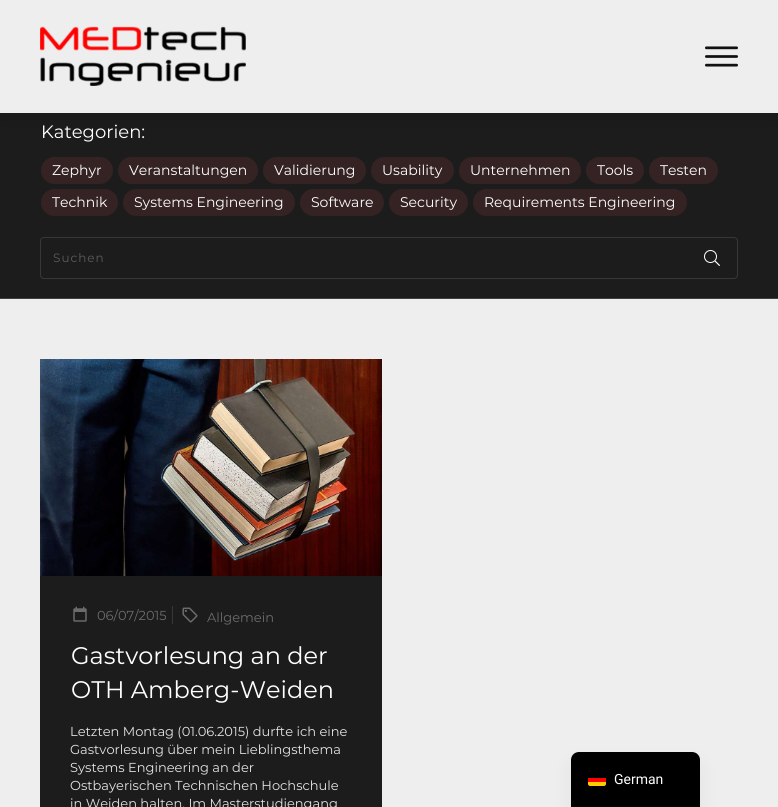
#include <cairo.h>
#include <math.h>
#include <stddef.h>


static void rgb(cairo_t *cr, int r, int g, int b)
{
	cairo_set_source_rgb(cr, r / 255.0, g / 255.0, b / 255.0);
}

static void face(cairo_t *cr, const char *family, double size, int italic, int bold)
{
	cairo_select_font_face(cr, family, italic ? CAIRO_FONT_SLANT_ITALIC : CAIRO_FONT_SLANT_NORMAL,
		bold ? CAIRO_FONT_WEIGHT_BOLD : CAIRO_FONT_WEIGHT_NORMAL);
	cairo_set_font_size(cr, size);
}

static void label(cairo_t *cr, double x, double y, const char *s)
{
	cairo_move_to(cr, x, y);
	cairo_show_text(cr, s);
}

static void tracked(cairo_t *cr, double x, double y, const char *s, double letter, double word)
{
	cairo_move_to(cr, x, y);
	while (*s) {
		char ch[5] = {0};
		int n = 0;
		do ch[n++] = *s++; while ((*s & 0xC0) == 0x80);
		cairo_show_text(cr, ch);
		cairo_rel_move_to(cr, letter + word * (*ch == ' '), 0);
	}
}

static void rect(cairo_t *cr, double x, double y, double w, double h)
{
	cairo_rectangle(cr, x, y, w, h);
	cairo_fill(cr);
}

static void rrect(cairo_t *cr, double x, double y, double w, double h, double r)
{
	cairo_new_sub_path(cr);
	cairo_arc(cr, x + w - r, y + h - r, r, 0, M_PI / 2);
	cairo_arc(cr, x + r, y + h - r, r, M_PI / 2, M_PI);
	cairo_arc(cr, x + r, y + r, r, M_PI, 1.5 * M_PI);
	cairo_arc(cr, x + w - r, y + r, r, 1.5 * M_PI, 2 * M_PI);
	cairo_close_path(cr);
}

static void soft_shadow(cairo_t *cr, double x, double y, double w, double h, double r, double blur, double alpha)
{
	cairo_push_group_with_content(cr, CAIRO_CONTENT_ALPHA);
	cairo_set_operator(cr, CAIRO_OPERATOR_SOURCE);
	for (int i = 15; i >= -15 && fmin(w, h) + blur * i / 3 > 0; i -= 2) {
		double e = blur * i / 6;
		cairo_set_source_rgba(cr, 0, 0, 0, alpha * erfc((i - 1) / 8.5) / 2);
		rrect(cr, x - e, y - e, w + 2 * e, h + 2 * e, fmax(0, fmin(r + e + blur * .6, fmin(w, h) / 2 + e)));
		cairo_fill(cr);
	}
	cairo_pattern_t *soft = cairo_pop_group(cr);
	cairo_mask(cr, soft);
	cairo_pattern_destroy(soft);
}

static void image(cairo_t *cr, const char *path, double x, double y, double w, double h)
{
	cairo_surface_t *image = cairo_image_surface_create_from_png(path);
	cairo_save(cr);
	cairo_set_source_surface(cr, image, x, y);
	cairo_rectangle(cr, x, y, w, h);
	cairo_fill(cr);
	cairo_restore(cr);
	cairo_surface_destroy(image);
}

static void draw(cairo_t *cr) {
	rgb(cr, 238, 238, 238);
	cairo_paint(cr);
	rgb(cr, 28, 28, 29);
	rect(cr, 0, 113, 778, 185);
	rgb(cr, 53, 35, 36);
	rrect(cr, 41, 157, 72, 27, 13.5);
	cairo_fill(cr);
	rrect(cr, 118, 157, 140, 27, 13.5);
	cairo_fill(cr);
	rrect(cr, 263, 157, 103, 27, 13.5);
	cairo_fill(cr);
	rrect(cr, 371, 157, 83, 27, 13.5);
	cairo_fill(cr);
	rrect(cr, 459, 157, 122, 27, 13.5);
	cairo_fill(cr);
	rrect(cr, 586, 157, 58, 27, 13.5);
	cairo_fill(cr);
	rrect(cr, 649, 157, 69, 27, 13.5);
	cairo_fill(cr);
	rgb(cr, 0, 0, 0);
	soft_shadow(cr, 0, 2, 778, 113, 0, 15, 0.08);
	rgb(cr, 238, 238, 238);
	rect(cr, 0, 0, 778, 113);
	image(cr, "image0.png", 40, 26, 206, 60);
	image(cr, "image1.png", 705, 46, 33, 21);
	rgb(cr, 63, 63, 63);
	rect(cr, 0, 298, 778, 1);
	face(cr, "Montserrat", 18, 0, 0);
	rgb(cr, 255, 255, 255);
	label(cr, 41, 138, "Kategorien:");
	face(cr, "Montserrat", 14, 0, 0);
	label(cr, 52, 175, "Zephyr");
	label(cr, 129, 175, "Veranstaltungen");
	label(cr, 274, 175, "Validierung");
	label(cr, 382, 175, "Usability");
	label(cr, 470, 175, "Unternehmen");
	label(cr, 597, 175, "Tools");
	label(cr, 660, 175, "Testen");
	rgb(cr, 53, 35, 36);
	rrect(cr, 41, 189, 77, 27, 13.5);
	cairo_fill(cr);
	rgb(cr, 255, 255, 255);
	label(cr, 52, 207, "Technik");
	rgb(cr, 53, 35, 36);
	rrect(cr, 123, 189, 172, 27, 13.5);
	cairo_fill(cr);
	rgb(cr, 255, 255, 255);
	label(cr, 134, 207, "Systems Engineering");
	rgb(cr, 53, 35, 36);
	rrect(cr, 300, 189, 84, 27, 13.5);
	cairo_fill(cr);
	rgb(cr, 255, 255, 255);
	label(cr, 311, 207, "Software");
	rgb(cr, 53, 35, 36);
	rrect(cr, 389, 189, 79, 27, 13.5);
	cairo_fill(cr);
	rgb(cr, 255, 255, 255);
	label(cr, 400, 207, "Security");
	rgb(cr, 53, 35, 36);
	rrect(cr, 473, 189, 214, 27, 13.5);
	cairo_fill(cr);
	rgb(cr, 255, 255, 255);
	label(cr, 484, 207, "Requirements Engineering");
	rrect(cr, 40.5, 237.5, 697, 41, 3.5);
	rgb(cr, 55, 55, 56);
	cairo_set_line_width(cr, 1);
	cairo_stroke(cr);
	face(cr, "Montserrat", 12, 0, 0);
	rgb(cr, 90, 91, 92);
	tracked(cr, 53, 262, "Suchen", 1, 0);
	image(cr, "image2.png", 704, 250, 16, 16);
	rgb(cr, 28, 28, 29);
	rect(cr, 40, 576, 342, 231);
	image(cr, "image3.png", 40, 359, 342, 217);
	image(cr, "image4.png", 73, 606, 14, 16);
	face(cr, "Montserrat", 13, 0, 0);
	rgb(cr, 106, 107, 108);
	label(cr, 97, 620, "06/07/2015");
	rgb(cr, 55, 55, 56);
	rect(cr, 172, 606, 1, 18);
	image(cr, "image5.png", 182, 607, 16, 16);
	rgb(cr, 106, 107, 108);
	label(cr, 207, 622, "Allgemein");
	face(cr, "Montserrat", 24, 0, 0);
	rgb(cr, 255, 255, 255);
	label(cr, 71, 664, "Gastvorlesung an der");
	label(cr, 71, 698, "OTH Amberg-Weiden");
	face(cr, "Montserrat", 13, 0, 0);
	rgb(cr, 228, 228, 228);
	label(cr, 70, 736, "Letzten Montag (01.06.2015) durfte ich eine");
	label(cr, 70, 754, "Gastvorlesung über mein Lieblingsthema");
	label(cr, 70, 772, "Systems Engineering an der");
	label(cr, 70, 790, "Ostbayerischen Technischen Hochschule");
	label(cr, 70, 808, "in Weiden halten. Im Masterstudiengang");
	rgb(cr, 0, 0, 0);
	soft_shadow(cr, 571, 762, 129, 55, 8, 10, 0.05);
	rgb(cr, 0, 0, 0);
	cairo_new_path(cr);
	cairo_move_to(cr, 579, 752);
	cairo_line_to(cr, 692, 752);
	cairo_curve_to(cr, 696.5, 752, 700, 755.5, 700, 760);
	cairo_line_to(cr, 700, 807);
	cairo_line_to(cr, 571, 807);
	cairo_line_to(cr, 571, 760);
	cairo_curve_to(cr, 571, 755.5, 574.5, 752, 579, 752);
	cairo_close_path(cr);
	cairo_fill(cr);
	rgb(cr, 255, 204, 0);
	cairo_new_path(cr);
	cairo_move_to(cr, 588, 782);
	cairo_line_to(cr, 606, 782);
	cairo_line_to(cr, 606, 784);
	cairo_curve_to(cr, 606, 785, 605, 786, 604, 786);
	cairo_line_to(cr, 590, 786);
	cairo_curve_to(cr, 589, 786, 588, 785, 588, 784);
	cairo_close_path(cr);
	cairo_fill(cr);
	rgb(cr, 255, 0, 0);
	rect(cr, 588, 778, 18, 4);
	face(cr, "Roboto", 14, 0, 0);
	rgb(cr, 255, 255, 255);
	label(cr, 614, 784, "German");
}

int main(void) {
	cairo_surface_t *surface = cairo_image_surface_create(CAIRO_FORMAT_RGB24, 778, 807);
	cairo_t *cr = cairo_create(surface);
	cairo_font_options_t *options = cairo_font_options_create();
	cairo_font_options_set_hint_metrics(options, CAIRO_HINT_METRICS_OFF);
	cairo_font_options_set_hint_style(options, CAIRO_HINT_STYLE_NONE);
	cairo_set_font_options(cr, options);
	cairo_set_miter_limit(cr, 4);
	draw(cr);
	cairo_surface_write_to_png(surface, "render.png");
	cairo_font_options_destroy(options);
	cairo_destroy(cr);
	cairo_surface_destroy(surface);
	return 0;
}
